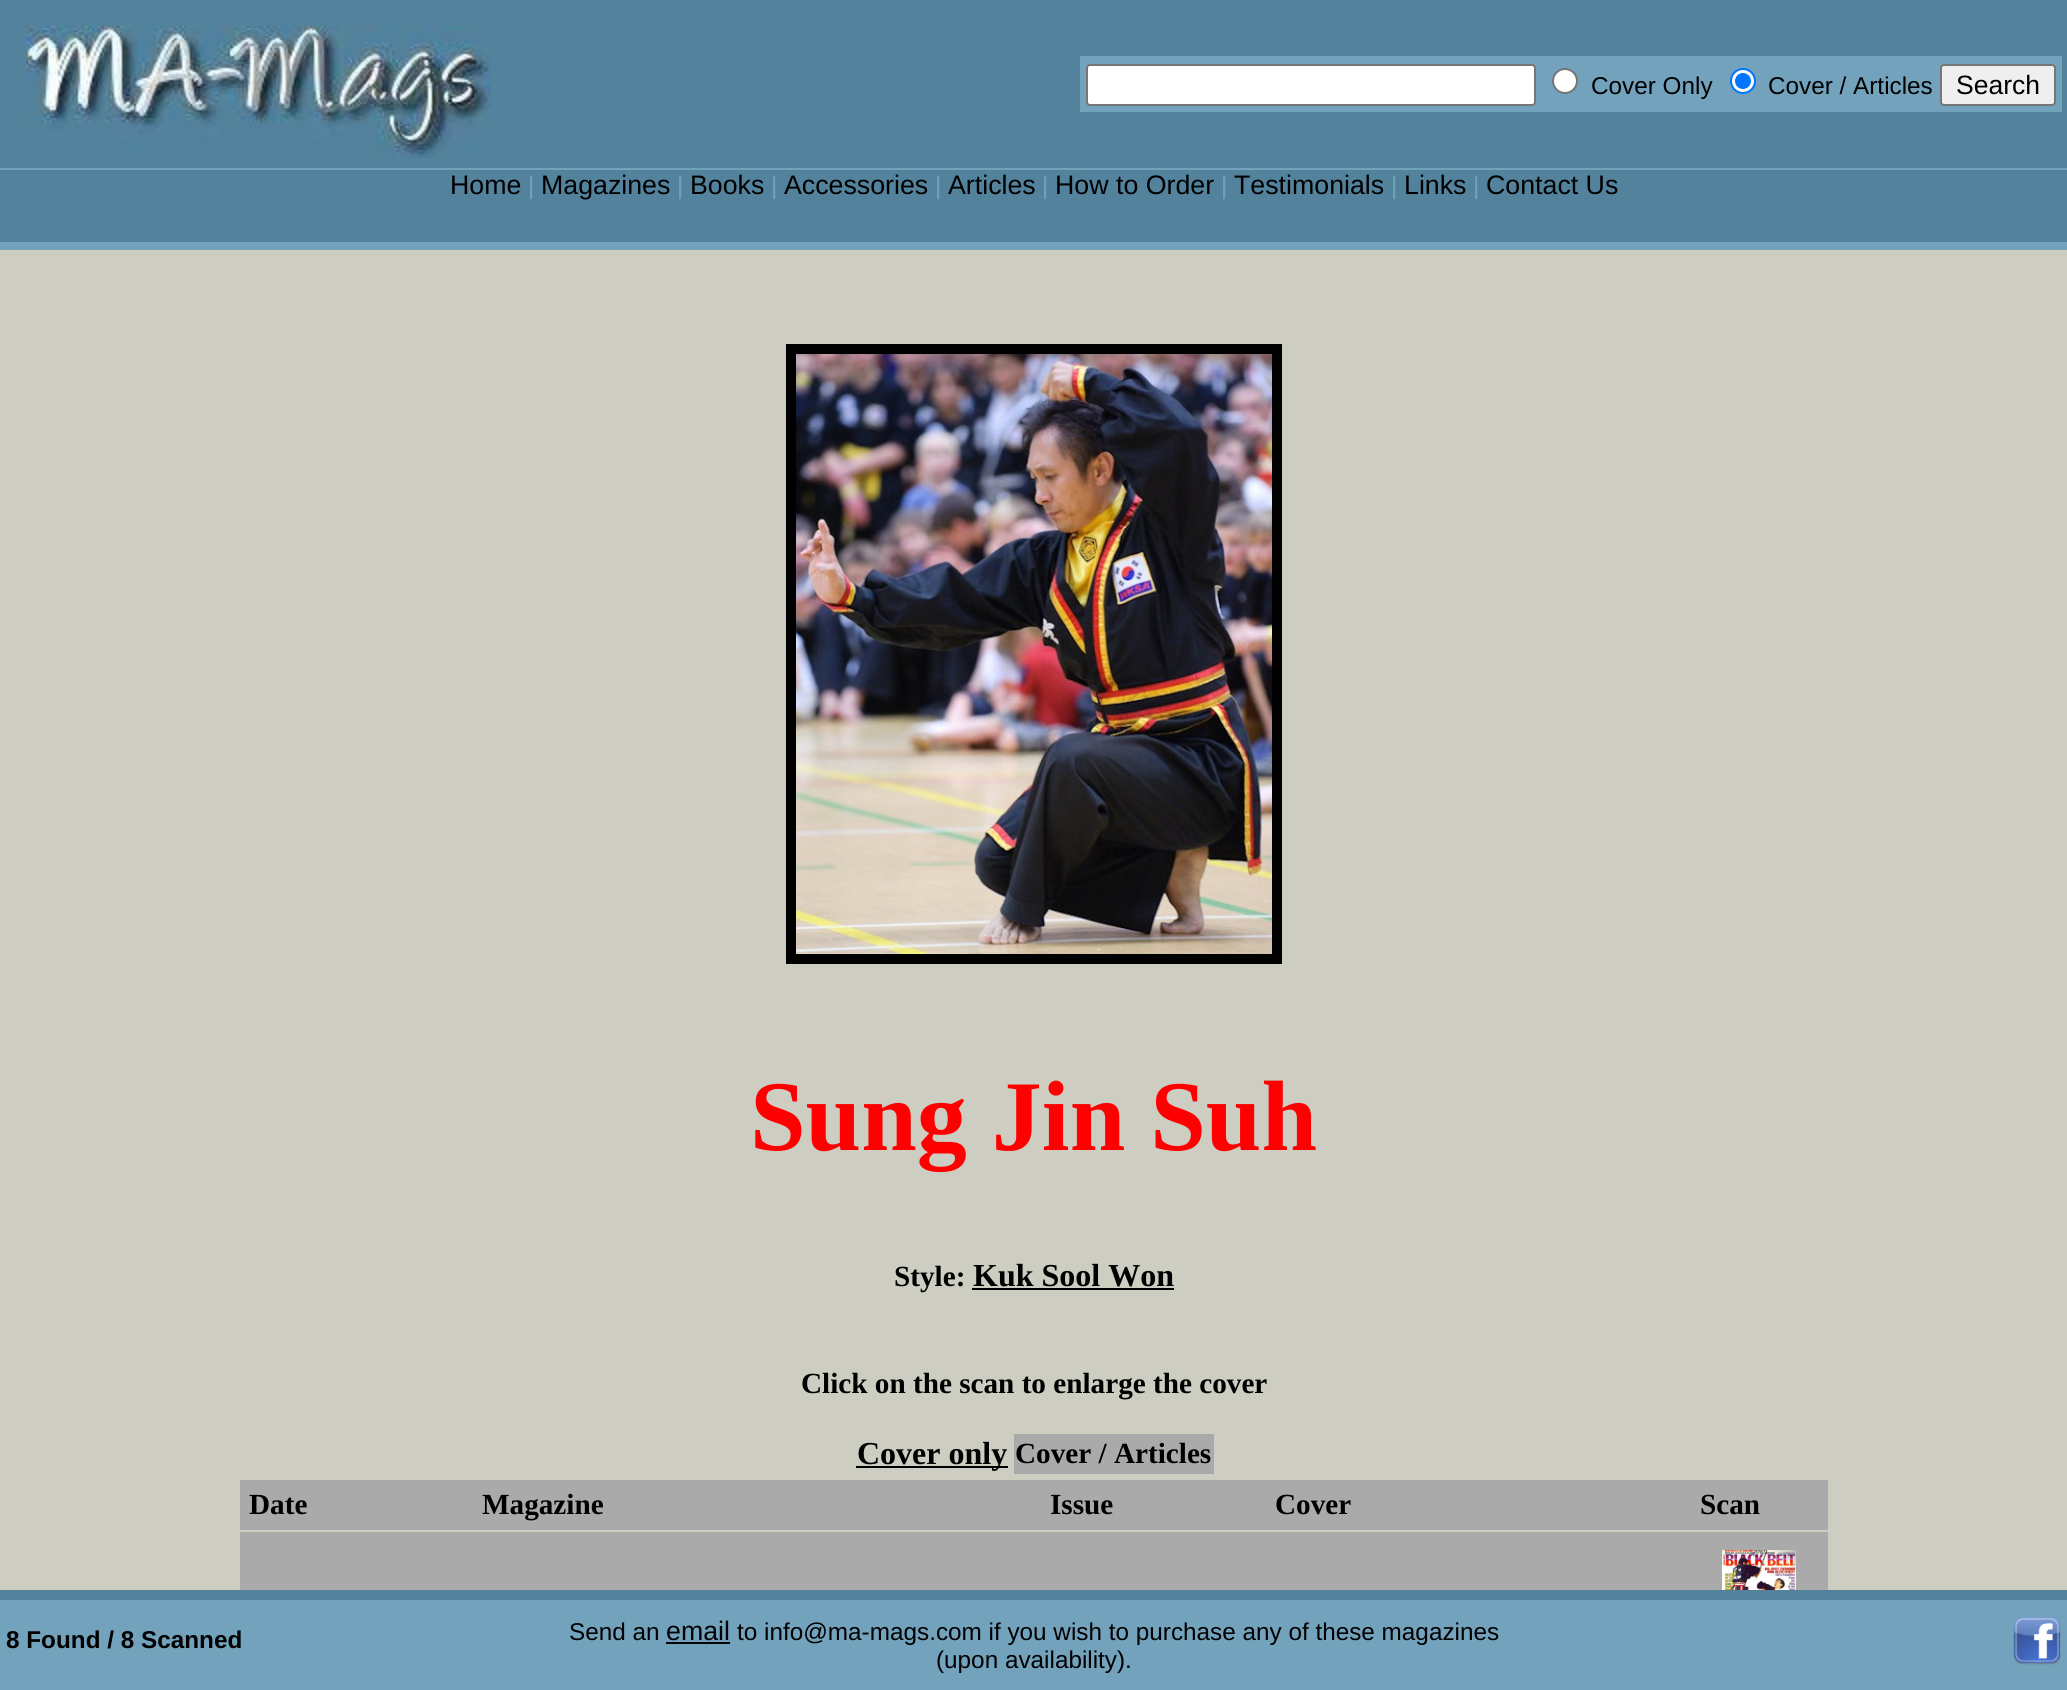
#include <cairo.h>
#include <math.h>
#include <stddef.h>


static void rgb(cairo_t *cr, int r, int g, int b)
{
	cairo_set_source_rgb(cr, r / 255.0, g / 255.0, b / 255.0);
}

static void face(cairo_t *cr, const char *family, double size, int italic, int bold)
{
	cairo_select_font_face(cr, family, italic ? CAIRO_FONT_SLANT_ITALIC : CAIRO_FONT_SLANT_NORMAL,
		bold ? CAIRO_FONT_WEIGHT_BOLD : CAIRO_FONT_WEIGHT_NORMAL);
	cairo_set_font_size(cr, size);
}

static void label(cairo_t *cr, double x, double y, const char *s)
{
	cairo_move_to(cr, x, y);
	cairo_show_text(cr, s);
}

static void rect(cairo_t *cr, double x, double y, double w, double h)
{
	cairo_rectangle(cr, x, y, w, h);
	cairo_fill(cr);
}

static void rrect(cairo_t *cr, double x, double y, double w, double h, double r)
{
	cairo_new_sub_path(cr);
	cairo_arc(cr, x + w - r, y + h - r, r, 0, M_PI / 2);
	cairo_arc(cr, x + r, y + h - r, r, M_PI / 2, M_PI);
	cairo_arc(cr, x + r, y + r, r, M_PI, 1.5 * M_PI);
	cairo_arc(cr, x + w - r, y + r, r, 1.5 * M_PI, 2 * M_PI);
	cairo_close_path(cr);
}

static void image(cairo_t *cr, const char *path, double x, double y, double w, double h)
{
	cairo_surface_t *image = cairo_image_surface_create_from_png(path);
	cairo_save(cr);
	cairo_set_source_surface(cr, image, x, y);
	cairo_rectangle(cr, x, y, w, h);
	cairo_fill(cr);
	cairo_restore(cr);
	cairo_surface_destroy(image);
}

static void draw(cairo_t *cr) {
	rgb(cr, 83, 130, 157);
	cairo_paint(cr);
	rgb(cr, 115, 162, 189);
	rect(cr, 0, 242, 2067, 8);
	image(cr, "image0.png", 26, 26, 466, 132);
	rect(cr, 1080, 56, 982, 56);
	rgb(cr, 255, 255, 255);
	rrect(cr, 1087, 65, 448, 40, 3);
	cairo_fill_preserve(cr);
	rgb(cr, 118, 118, 118);
	cairo_stroke(cr);
	rgb(cr, 255, 255, 255);
	cairo_arc(cr, 1565, 81, 12, 0, 2 * M_PI);
	cairo_fill_preserve(cr);
	rgb(cr, 118, 118, 118);
	cairo_stroke(cr);
	face(cr, "Liberation Sans", 24.3, 0, 0);
	rgb(cr, 0, 0, 0);
	label(cr, 1591, 94, "Cover Only");
	rgb(cr, 255, 255, 255);
	cairo_new_path(cr);
	cairo_arc(cr, 1743, 81, 12, 0, 2 * M_PI);
	cairo_fill_preserve(cr);
	rgb(cr, 0, 117, 255);
	cairo_stroke(cr);
	cairo_arc(cr, 1743, 81, 8, 0, 2 * M_PI);
	cairo_fill(cr);
	rgb(cr, 0, 0, 0);
	label(cr, 1768, 94, "Cover / Articles");
	rgb(cr, 239, 239, 239);
	rrect(cr, 1941, 65, 114, 40, 3);
	cairo_fill_preserve(cr);
	rgb(cr, 118, 118, 118);
	cairo_stroke(cr);
	face(cr, "Liberation Sans", 26.5, 0, 0);
	rgb(cr, 0, 0, 0);
	label(cr, 1956, 94, "Search");
	rgb(cr, 115, 162, 189);
	rect(cr, 0, 168, 2067, 2);
	face(cr, "Liberation Sans", 26.75, 0, 0);
	rgb(cr, 0, 0, 0);
	label(cr, 450, 194, "Home");
	face(cr, "Liberation Sans", 24.3, 0, 0);
	rgb(cr, 115, 162, 189);
	label(cr, 528, 194, "|");
	face(cr, "Liberation Sans", 26.75, 0, 0);
	rgb(cr, 0, 0, 0);
	label(cr, 541, 194, "Magazines");
	face(cr, "Liberation Sans", 24.3, 0, 0);
	rgb(cr, 115, 162, 189);
	label(cr, 677, 194, "|");
	face(cr, "Liberation Sans", 26.75, 0, 0);
	rgb(cr, 0, 0, 0);
	label(cr, 690, 194, "Books");
	face(cr, "Liberation Sans", 24.3, 0, 0);
	rgb(cr, 115, 162, 189);
	label(cr, 771, 194, "|");
	face(cr, "Liberation Sans", 26.75, 0, 0);
	rgb(cr, 0, 0, 0);
	label(cr, 784, 194, "Accessories");
	face(cr, "Liberation Sans", 24.3, 0, 0);
	rgb(cr, 115, 162, 189);
	label(cr, 935, 194, "|");
	face(cr, "Liberation Sans", 26.75, 0, 0);
	rgb(cr, 0, 0, 0);
	label(cr, 948, 194, "Articles");
	face(cr, "Liberation Sans", 24.3, 0, 0);
	rgb(cr, 115, 162, 189);
	label(cr, 1042, 194, "|");
	face(cr, "Liberation Sans", 26.75, 0, 0);
	rgb(cr, 0, 0, 0);
	label(cr, 1055, 194, "How to Order");
	face(cr, "Liberation Sans", 24.3, 0, 0);
	rgb(cr, 115, 162, 189);
	label(cr, 1221, 194, "|");
	face(cr, "Liberation Sans", 26.75, 0, 0);
	rgb(cr, 0, 0, 0);
	label(cr, 1234, 194, "Testimonials");
	face(cr, "Liberation Sans", 24.3, 0, 0);
	rgb(cr, 115, 162, 189);
	label(cr, 1391, 194, "|");
	face(cr, "Liberation Sans", 26.75, 0, 0);
	rgb(cr, 0, 0, 0);
	label(cr, 1404, 194, "Links");
	face(cr, "Liberation Sans", 24.3, 0, 0);
	rgb(cr, 115, 162, 189);
	label(cr, 1473, 194, "|");
	face(cr, "Liberation Sans", 26.75, 0, 0);
	rgb(cr, 0, 0, 0);
	label(cr, 1486, 194, "Contact Us");
	rgb(cr, 205, 205, 193);
	rect(cr, 0, 250, 2067, 1340);
	cairo_rectangle(cr, 791, 349, 486, 610);
	rgb(cr, 0, 0, 0);
	cairo_set_line_width(cr, 10);
	cairo_stroke(cr);
	image(cr, "image1.png", 796, 354, 476, 600);
	face(cr, "Liberation Serif", 100, 0, 1);
	rgb(cr, 255, 0, 0);
	label(cr, 750, 1150, "Sung Jin Suh");
	face(cr, "Liberation Serif", 29.2, 0, 1);
	rgb(cr, 0, 0, 0);
	label(cr, 894, 1286, "Style:");
	face(cr, "Liberation Serif", 32, 0, 1);
	label(cr, 973, 1286, "Kuk Sool Won");
	rect(cr, 972, 1288, 202, 2);
	face(cr, "Liberation Serif", 29.2, 0, 1);
	label(cr, 801, 1393, "Click on the scan to enlarge the cover");
	rect(cr, 856, 1466, 152, 2);
	face(cr, "Liberation Serif", 32, 0, 1);
	label(cr, 857, 1464, "Cover only");
	rgb(cr, 170, 170, 170);
	rect(cr, 1014, 1434, 200, 40);
	face(cr, "Liberation Serif", 29.2, 0, 1);
	rgb(cr, 0, 0, 0);
	label(cr, 1015, 1463, "Cover / Articles");
	rgb(cr, 170, 170, 170);
	rect(cr, 240, 1480, 1588, 50);
	rgb(cr, 0, 0, 0);
	label(cr, 249, 1514, "Date");
	label(cr, 482, 1514, "Magazine");
	label(cr, 1050, 1514, "Issue");
	label(cr, 1275, 1514, "Cover");
	label(cr, 1700, 1514, "Scan");
	rgb(cr, 170, 170, 170);
	rect(cr, 240, 1532, 1588, 58);
	image(cr, "image2.png", 1722, 1550, 74, 40);
	rgb(cr, 115, 162, 189);
	rect(cr, 0, 1600, 2067, 90);
	face(cr, "Liberation Sans", 24.3, 0, 1);
	rgb(cr, 0, 0, 0);
	label(cr, 6, 1648, "8 Found / 8 Scanned");
	face(cr, "Liberation Sans", 24.3, 0, 0);
	label(cr, 569, 1640, "Send an");
	face(cr, "Liberation Sans", 26.75, 0, 0);
	label(cr, 666, 1640, "email");
	rect(cr, 666, 1642, 64, 2);
	face(cr, "Liberation Sans", 24.3, 0, 0);
	label(cr, 737, 1640, "to info@ma-mags.com if you wish to purchase any of these magazines");
	label(cr, 936, 1668, "(upon availability).");
	image(cr, "image3.png", 2013, 1617, 48, 48);
}

int main(void) {
	cairo_surface_t *surface = cairo_image_surface_create(CAIRO_FORMAT_RGB24, 2067, 1690);
	cairo_t *cr = cairo_create(surface);
	cairo_font_options_t *options = cairo_font_options_create();
	cairo_font_options_set_hint_metrics(options, CAIRO_HINT_METRICS_OFF);
	cairo_font_options_set_hint_style(options, CAIRO_HINT_STYLE_NONE);
	cairo_set_font_options(cr, options);
	cairo_set_miter_limit(cr, 4);
	draw(cr);
	cairo_surface_write_to_png(surface, "render.png");
	cairo_font_options_destroy(options);
	cairo_destroy(cr);
	cairo_surface_destroy(surface);
	return 0;
}
